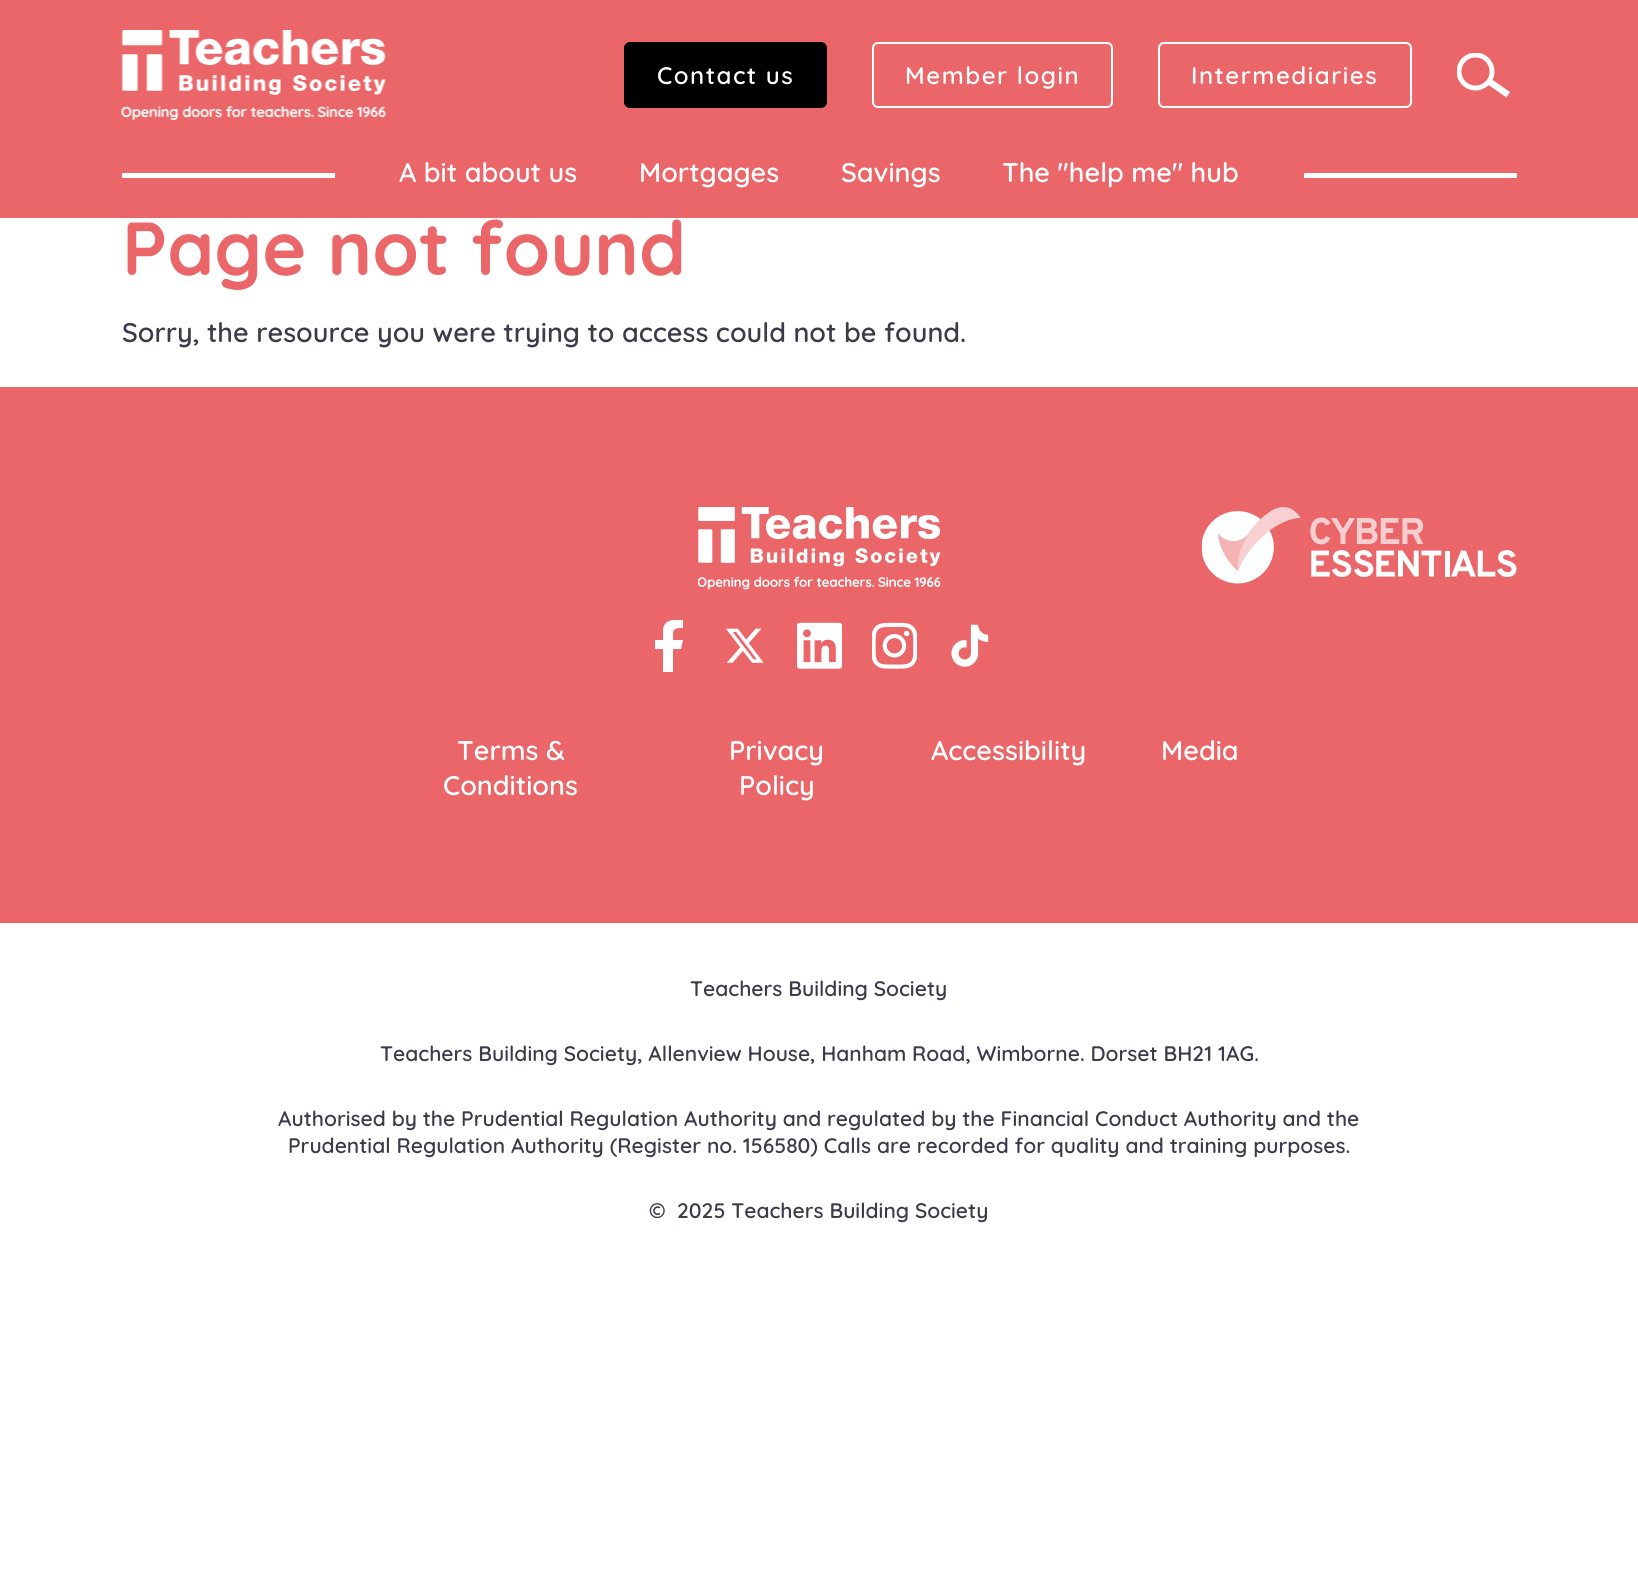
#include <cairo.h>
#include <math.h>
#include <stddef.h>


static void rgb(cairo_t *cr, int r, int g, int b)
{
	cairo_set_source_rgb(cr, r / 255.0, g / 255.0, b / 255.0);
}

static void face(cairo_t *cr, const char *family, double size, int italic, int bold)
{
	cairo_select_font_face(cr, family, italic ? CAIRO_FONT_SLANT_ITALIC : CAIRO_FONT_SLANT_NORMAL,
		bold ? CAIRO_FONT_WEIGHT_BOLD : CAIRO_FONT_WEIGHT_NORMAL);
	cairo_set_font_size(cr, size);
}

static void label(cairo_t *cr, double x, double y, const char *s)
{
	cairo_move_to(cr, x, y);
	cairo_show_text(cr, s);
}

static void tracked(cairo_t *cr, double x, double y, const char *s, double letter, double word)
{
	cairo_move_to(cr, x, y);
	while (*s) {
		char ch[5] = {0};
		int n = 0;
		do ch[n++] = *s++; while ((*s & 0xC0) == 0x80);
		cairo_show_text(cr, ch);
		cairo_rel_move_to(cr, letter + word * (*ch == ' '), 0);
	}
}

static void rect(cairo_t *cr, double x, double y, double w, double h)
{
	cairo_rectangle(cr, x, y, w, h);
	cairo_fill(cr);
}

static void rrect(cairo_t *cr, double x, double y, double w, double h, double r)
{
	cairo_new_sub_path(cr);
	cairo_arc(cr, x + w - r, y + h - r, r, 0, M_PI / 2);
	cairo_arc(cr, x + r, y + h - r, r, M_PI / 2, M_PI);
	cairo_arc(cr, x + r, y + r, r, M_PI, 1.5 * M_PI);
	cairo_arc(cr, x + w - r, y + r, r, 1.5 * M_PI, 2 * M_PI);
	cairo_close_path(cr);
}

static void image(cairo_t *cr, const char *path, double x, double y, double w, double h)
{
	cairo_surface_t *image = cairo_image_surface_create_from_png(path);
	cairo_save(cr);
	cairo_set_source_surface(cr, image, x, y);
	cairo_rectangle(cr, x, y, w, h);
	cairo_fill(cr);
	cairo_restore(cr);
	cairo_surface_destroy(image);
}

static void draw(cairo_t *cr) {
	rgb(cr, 255, 255, 255);
	cairo_paint(cr);
	rgb(cr, 234, 102, 105);
	rect(cr, 0, 0, 1638, 218);
	image(cr, "image0.png", 121, 30, 265, 90);
	rgb(cr, 0, 0, 0);
	rrect(cr, 625, 43, 201, 64, 5);
	cairo_fill_preserve(cr);
	cairo_stroke(cr);
	face(cr, "Quicksand SemiBold", 24, 0, 0);
	rgb(cr, 255, 255, 255);
	tracked(cr, 657, 84, "Contact us", 1.5, 0);
	rrect(cr, 873, 43, 239, 64, 5);
	cairo_stroke(cr);
	tracked(cr, 905, 84, "Member login", 1.5, 0);
	rrect(cr, 1159, 43, 252, 64, 5);
	cairo_stroke(cr);
	tracked(cr, 1191, 84, "Intermediaries", 1.5, 0);
	cairo_save(cr);
	cairo_rectangle(cr, 1457, 53, 54, 45);
	cairo_clip(cr);
	cairo_arc(cr, 1475.5, 71.5, 16.5, 0, 2 * M_PI);
	cairo_set_line_width(cr, 4.9);
	cairo_stroke(cr);
	cairo_restore(cr);
	cairo_new_path(cr);
	cairo_move_to(cr, 1490.5, 78.5);
	cairo_line_to(cr, 1510, 92);
	cairo_line_to(cr, 1506.5, 97.5);
	cairo_line_to(cr, 1487, 84);
	cairo_close_path(cr);
	cairo_fill(cr);
	rect(cr, 122, 173, 213, 5);
	face(cr, "Quicksand SemiBold", 27, 0, 0);
	label(cr, 399, 182, "A bit about us");
	label(cr, 639, 182, "Mortgages");
	label(cr, 841, 182, "Savings");
	label(cr, 1002, 182, "The \"help me\" hub");
	rect(cr, 1304, 173, 213, 5);
	face(cr, "Quicksand Light", 75, 0, 0);
	rgb(cr, 234, 102, 105);
	label(cr, 122, 275, "Page not found");
	face(cr, "Quicksand SemiBold", 27, 0, 0);
	rgb(cr, 59, 60, 74);
	label(cr, 122, 342, "Sorry, the resource you were trying to access could not be found.");
	rgb(cr, 234, 102, 105);
	rect(cr, 0, 387, 1638, 536);
	image(cr, "image1.png", 698, 507, 243, 83);
	image(cr, "image2.png", 1202, 507, 315, 77);
	cairo_save(cr);
	cairo_rectangle(cr, 653, 620, 33, 52);
	cairo_clip(cr);
	rgb(cr, 255, 255, 255);
	cairo_new_path(cr);
	cairo_move_to(cr, 681, 649);
	cairo_line_to(cr, 683, 640);
	cairo_line_to(cr, 673, 640);
	cairo_curve_to(cr, 673, 630, 672, 628, 683, 628);
	cairo_line_to(cr, 683, 620);
	cairo_curve_to(cr, 675, 619, 665, 619, 663, 629);
	cairo_line_to(cr, 663, 640);
	cairo_line_to(cr, 655, 640);
	cairo_line_to(cr, 655, 649);
	cairo_line_to(cr, 663, 649);
	cairo_line_to(cr, 663, 672);
	cairo_line_to(cr, 673, 672);
	cairo_line_to(cr, 673, 649);
	cairo_close_path(cr);
	cairo_fill(cr);
	cairo_restore(cr);
	image(cr, "image3.png", 726, 628, 38, 35);
	image(cr, "image4.png", 797, 622, 45, 47);
	image(cr, "image5.png", 872, 622, 45, 47);
	image(cr, "image6.png", 951, 624, 38, 43);
	rgb(cr, 255, 255, 255);
	label(cr, 457, 760, "Terms &");
	label(cr, 443, 795, "Conditions");
	label(cr, 729, 760, "Privacy");
	label(cr, 739, 795, "Policy");
	label(cr, 931, 760, "Accessibility");
	label(cr, 1161, 760, "Media");
	face(cr, "Quicksand SemiBold", 21, 0, 0);
	rgb(cr, 59, 60, 74);
	label(cr, 690, 996, "Teachers Building Society");
	label(cr, 380, 1061, "Teachers Building Society, Allenview House, Hanham Road, Wimborne. Dorset BH21 1AG.");
	label(cr, 278, 1126, "Authorised by the Prudential Regulation Authority and regulated by the Financial Conduct Authority and the");
	label(cr, 288, 1153, "Prudential Regulation Authority (Register no. 156580) Calls are recorded for quality and training purposes.");
	label(cr, 649, 1218, "©");
	label(cr, 677, 1218, "2025 Teachers Building Society");
}

int main(void) {
	cairo_surface_t *surface = cairo_image_surface_create(CAIRO_FORMAT_RGB24, 1638, 1593);
	cairo_t *cr = cairo_create(surface);
	cairo_font_options_t *options = cairo_font_options_create();
	cairo_font_options_set_hint_metrics(options, CAIRO_HINT_METRICS_OFF);
	cairo_font_options_set_hint_style(options, CAIRO_HINT_STYLE_NONE);
	cairo_set_font_options(cr, options);
	cairo_set_miter_limit(cr, 4);
	draw(cr);
	cairo_surface_write_to_png(surface, "render.png");
	cairo_font_options_destroy(options);
	cairo_destroy(cr);
	cairo_surface_destroy(surface);
	return 0;
}
